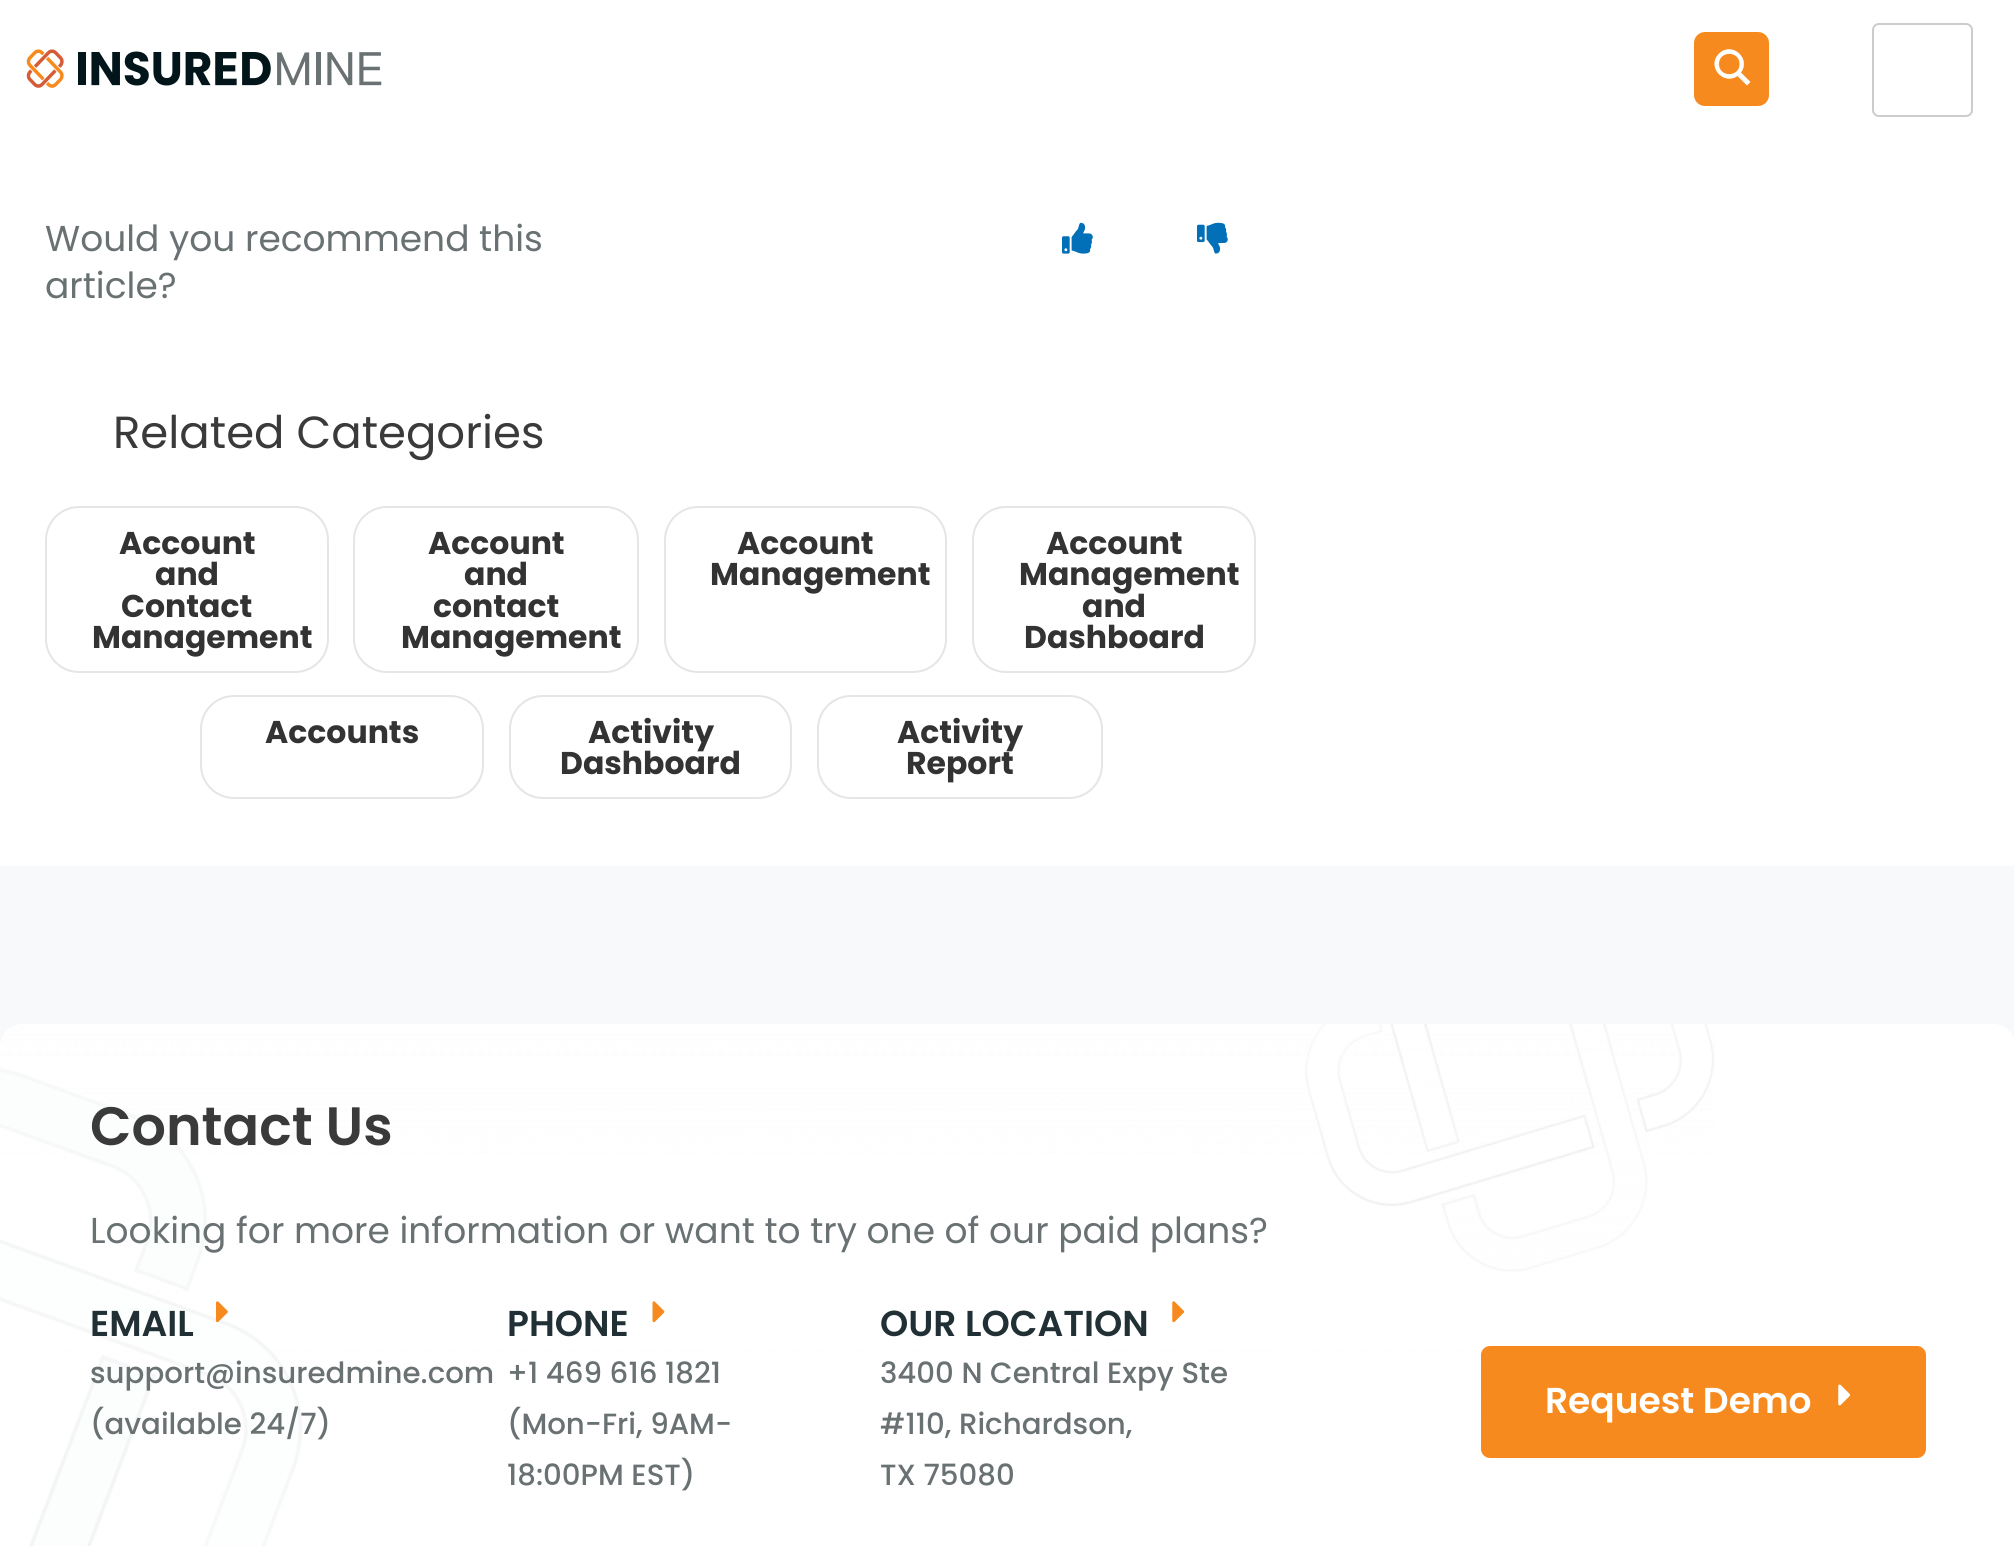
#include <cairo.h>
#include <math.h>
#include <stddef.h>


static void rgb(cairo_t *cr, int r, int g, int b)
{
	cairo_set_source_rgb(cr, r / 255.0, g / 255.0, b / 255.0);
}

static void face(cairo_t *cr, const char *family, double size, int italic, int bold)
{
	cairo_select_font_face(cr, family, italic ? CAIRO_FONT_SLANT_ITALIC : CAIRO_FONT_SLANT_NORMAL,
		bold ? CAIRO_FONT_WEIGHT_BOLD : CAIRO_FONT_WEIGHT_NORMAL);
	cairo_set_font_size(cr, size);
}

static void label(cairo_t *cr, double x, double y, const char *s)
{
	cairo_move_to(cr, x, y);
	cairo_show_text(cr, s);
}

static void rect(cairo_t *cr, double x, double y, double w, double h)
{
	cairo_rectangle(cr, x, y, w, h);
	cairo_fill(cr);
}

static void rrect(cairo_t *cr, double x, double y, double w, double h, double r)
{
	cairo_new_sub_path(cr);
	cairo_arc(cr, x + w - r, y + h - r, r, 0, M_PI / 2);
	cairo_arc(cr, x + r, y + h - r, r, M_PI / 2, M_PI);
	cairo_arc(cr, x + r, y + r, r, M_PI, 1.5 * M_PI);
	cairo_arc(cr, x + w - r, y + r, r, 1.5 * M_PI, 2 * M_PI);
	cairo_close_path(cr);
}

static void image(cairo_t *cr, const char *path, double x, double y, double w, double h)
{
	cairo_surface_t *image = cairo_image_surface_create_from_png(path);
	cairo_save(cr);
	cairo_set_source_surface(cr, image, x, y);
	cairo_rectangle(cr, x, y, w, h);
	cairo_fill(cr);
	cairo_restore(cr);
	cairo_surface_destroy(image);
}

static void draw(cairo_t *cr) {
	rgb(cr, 255, 255, 255);
	cairo_paint(cr);
	rgb(cr, 246, 138, 31);
	rrect(cr, 1694, 32, 75, 74, 11);
	cairo_fill(cr);
	rgb(cr, 255, 255, 255);
	cairo_new_path(cr);
	cairo_move_to(cr, 1750.5, 82);
	cairo_line_to(cr, 1741, 72.5);
	cairo_curve_to(cr, 1751.5, 58.5, 1732, 41, 1719, 53.5);
	cairo_curve_to(cr, 1706, 66.5, 1723.5, 86, 1737.5, 76);
	cairo_line_to(cr, 1747, 85.5);
	cairo_close_path(cr);
	cairo_move_to(cr, 1719, 64);
	cairo_curve_to(cr, 1719, 50.5, 1739.5, 50.5, 1739.5, 64);
	cairo_curve_to(cr, 1739.5, 77.5, 1719, 77.5, 1719, 64);
	cairo_close_path(cr);
	cairo_fill(cr);
	image(cr, "image0.png", 26, 49, 356, 39);
	rrect(cr, 1873, 24, 99, 92, 6);
	rgb(cr, 204, 204, 204);
	cairo_stroke(cr);
	face(cr, "Poppins", 36, 0, 0);
	rgb(cr, 105, 113, 115);
	label(cr, 45, 251, "Would you recommend this");
	label(cr, 45, 298, "article?");
	image(cr, "image1.png", 1062, 222, 31, 32);
	image(cr, "image2.png", 1197, 222, 31, 32);
	face(cr, "Poppins", 45, 0, 0);
	rgb(cr, 58, 58, 58);
	label(cr, 113, 448, "Related Categories");
	rrect(cr, 46, 507, 282, 165, 33);
	rgb(cr, 229, 229, 229);
	cairo_stroke(cr);
	face(cr, "Poppins", 31.5, 0, 1);
	rgb(cr, 51, 51, 51);
	label(cr, 119, 554, "Account");
	label(cr, 155, 585, "and");
	label(cr, 121, 617, "Contact");
	label(cr, 92, 648, "Management");
	rrect(cr, 354, 507, 284, 165, 33);
	rgb(cr, 229, 229, 229);
	cairo_stroke(cr);
	rgb(cr, 51, 51, 51);
	label(cr, 428, 554, "Account");
	label(cr, 464, 585, "and");
	label(cr, 433, 617, "contact");
	label(cr, 401, 648, "Management");
	rrect(cr, 665, 507, 281, 165, 33);
	rgb(cr, 229, 229, 229);
	cairo_stroke(cr);
	rgb(cr, 51, 51, 51);
	label(cr, 737, 554, "Account");
	label(cr, 710, 585, "Management");
	rrect(cr, 973, 507, 282, 165, 33);
	rgb(cr, 229, 229, 229);
	cairo_stroke(cr);
	rgb(cr, 51, 51, 51);
	label(cr, 1046, 554, "Account");
	label(cr, 1019, 585, "Management");
	label(cr, 1082, 617, "and");
	label(cr, 1024, 648, "Dashboard");
	rrect(cr, 201, 696, 282, 102, 33);
	rgb(cr, 229, 229, 229);
	cairo_stroke(cr);
	rgb(cr, 51, 51, 51);
	label(cr, 265, 743, "Accounts");
	rrect(cr, 510, 696, 281, 102, 33);
	rgb(cr, 229, 229, 229);
	cairo_stroke(cr);
	rgb(cr, 51, 51, 51);
	label(cr, 588, 743, "Activity");
	label(cr, 560, 774, "Dashboard");
	rrect(cr, 818, 696, 284, 102, 33);
	rgb(cr, 229, 229, 229);
	cairo_stroke(cr);
	rgb(cr, 51, 51, 51);
	label(cr, 897, 743, "Activity");
	label(cr, 906, 774, "Report");
	rgb(cr, 247, 249, 250);
	rect(cr, 0, 866, 2014, 181);
	rgb(cr, 255, 255, 255);
	rrect(cr, 0, 1024, 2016, 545, 23);
	cairo_fill(cr);
	image(cr, "image3.png", 0, 1024, 1715, 522);
	face(cr, "Poppins SemiBold", 54, 0, 0);
	rgb(cr, 58, 58, 58);
	label(cr, 90, 1145, "Contact Us");
	face(cr, "Poppins", 36, 0, 0);
	rgb(cr, 105, 113, 115);
	label(cr, 90, 1243, "Looking for more information or want to try one of our paid plans?");
	face(cr, "Poppins SemiBold", 36, 0, 0);
	rgb(cr, 33, 48, 52);
	label(cr, 90, 1336, "EMAIL");
	image(cr, "image4.png", 216, 1301, 12, 22);
	face(cr, "Poppins Medium", 29.25, 0, 0);
	rgb(cr, 105, 113, 115);
	label(cr, 90, 1383, "support@insuredmine.com");
	label(cr, 90, 1434, "(available 24/7)");
	face(cr, "Poppins SemiBold", 36, 0, 0);
	rgb(cr, 33, 48, 52);
	label(cr, 507, 1336, "PHONE");
	image(cr, "image5.png", 652, 1301, 13, 22);
	face(cr, "Poppins Medium", 29.25, 0, 0);
	rgb(cr, 105, 113, 115);
	label(cr, 507, 1383, "+1 469 616 1821");
	label(cr, 507, 1434, "(Mon-Fri, 9AM-");
	label(cr, 507, 1485, "18:00PM EST)");
	face(cr, "Poppins SemiBold", 36, 0, 0);
	rgb(cr, 33, 48, 52);
	label(cr, 880, 1336, "OUR LOCATION");
	image(cr, "image6.png", 1172, 1301, 13, 22);
	face(cr, "Poppins Medium", 29.25, 0, 0);
	rgb(cr, 105, 113, 115);
	label(cr, 880, 1383, "3400 N Central Expy Ste");
	label(cr, 880, 1434, "#110, Richardson,");
	label(cr, 880, 1485, "TX 75080");
	rgb(cr, 246, 138, 31);
	rrect(cr, 1481, 1346, 445, 112, 9);
	cairo_fill(cr);
	face(cr, "Poppins SemiBold", 36, 0, 0);
	rgb(cr, 255, 255, 255);
	label(cr, 1545, 1413, "Request Demo");
	image(cr, "image7.png", 1838, 1384, 13, 22);
}

int main(void) {
	cairo_surface_t *surface = cairo_image_surface_create(CAIRO_FORMAT_RGB24, 2014, 1546);
	cairo_t *cr = cairo_create(surface);
	cairo_font_options_t *options = cairo_font_options_create();
	cairo_font_options_set_hint_metrics(options, CAIRO_HINT_METRICS_OFF);
	cairo_font_options_set_hint_style(options, CAIRO_HINT_STYLE_NONE);
	cairo_set_font_options(cr, options);
	cairo_set_miter_limit(cr, 4);
	draw(cr);
	cairo_surface_write_to_png(surface, "render.png");
	cairo_font_options_destroy(options);
	cairo_destroy(cr);
	cairo_surface_destroy(surface);
	return 0;
}
